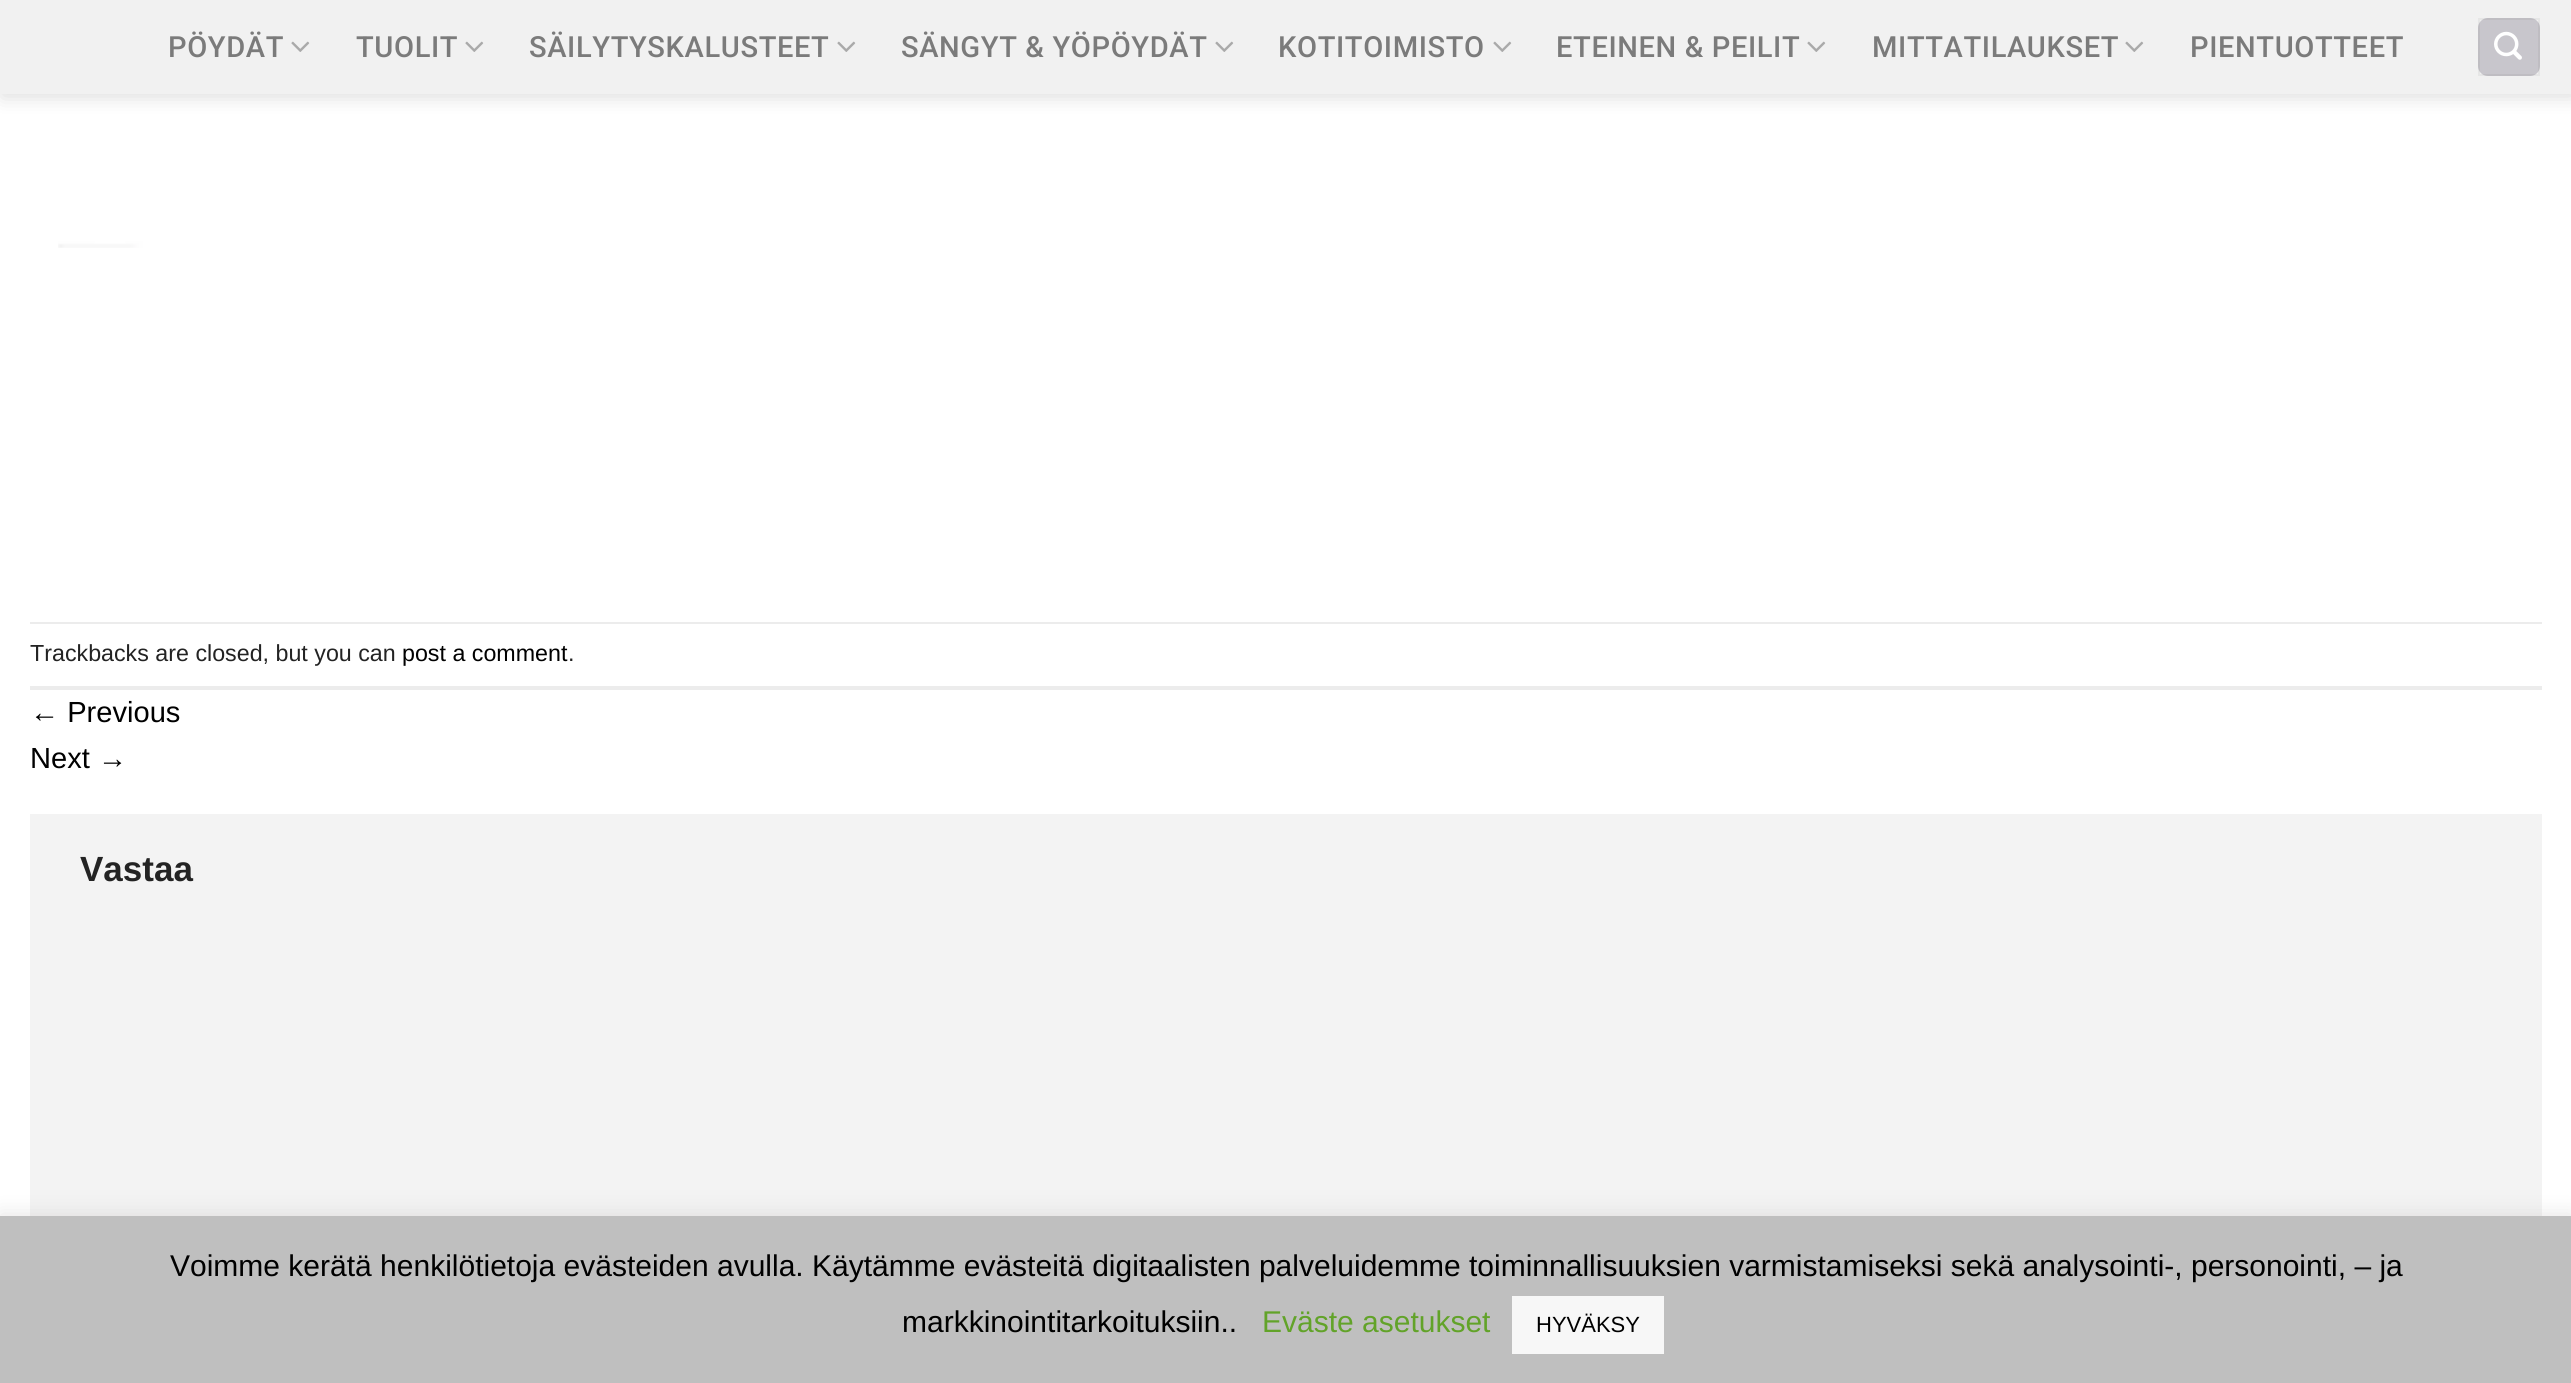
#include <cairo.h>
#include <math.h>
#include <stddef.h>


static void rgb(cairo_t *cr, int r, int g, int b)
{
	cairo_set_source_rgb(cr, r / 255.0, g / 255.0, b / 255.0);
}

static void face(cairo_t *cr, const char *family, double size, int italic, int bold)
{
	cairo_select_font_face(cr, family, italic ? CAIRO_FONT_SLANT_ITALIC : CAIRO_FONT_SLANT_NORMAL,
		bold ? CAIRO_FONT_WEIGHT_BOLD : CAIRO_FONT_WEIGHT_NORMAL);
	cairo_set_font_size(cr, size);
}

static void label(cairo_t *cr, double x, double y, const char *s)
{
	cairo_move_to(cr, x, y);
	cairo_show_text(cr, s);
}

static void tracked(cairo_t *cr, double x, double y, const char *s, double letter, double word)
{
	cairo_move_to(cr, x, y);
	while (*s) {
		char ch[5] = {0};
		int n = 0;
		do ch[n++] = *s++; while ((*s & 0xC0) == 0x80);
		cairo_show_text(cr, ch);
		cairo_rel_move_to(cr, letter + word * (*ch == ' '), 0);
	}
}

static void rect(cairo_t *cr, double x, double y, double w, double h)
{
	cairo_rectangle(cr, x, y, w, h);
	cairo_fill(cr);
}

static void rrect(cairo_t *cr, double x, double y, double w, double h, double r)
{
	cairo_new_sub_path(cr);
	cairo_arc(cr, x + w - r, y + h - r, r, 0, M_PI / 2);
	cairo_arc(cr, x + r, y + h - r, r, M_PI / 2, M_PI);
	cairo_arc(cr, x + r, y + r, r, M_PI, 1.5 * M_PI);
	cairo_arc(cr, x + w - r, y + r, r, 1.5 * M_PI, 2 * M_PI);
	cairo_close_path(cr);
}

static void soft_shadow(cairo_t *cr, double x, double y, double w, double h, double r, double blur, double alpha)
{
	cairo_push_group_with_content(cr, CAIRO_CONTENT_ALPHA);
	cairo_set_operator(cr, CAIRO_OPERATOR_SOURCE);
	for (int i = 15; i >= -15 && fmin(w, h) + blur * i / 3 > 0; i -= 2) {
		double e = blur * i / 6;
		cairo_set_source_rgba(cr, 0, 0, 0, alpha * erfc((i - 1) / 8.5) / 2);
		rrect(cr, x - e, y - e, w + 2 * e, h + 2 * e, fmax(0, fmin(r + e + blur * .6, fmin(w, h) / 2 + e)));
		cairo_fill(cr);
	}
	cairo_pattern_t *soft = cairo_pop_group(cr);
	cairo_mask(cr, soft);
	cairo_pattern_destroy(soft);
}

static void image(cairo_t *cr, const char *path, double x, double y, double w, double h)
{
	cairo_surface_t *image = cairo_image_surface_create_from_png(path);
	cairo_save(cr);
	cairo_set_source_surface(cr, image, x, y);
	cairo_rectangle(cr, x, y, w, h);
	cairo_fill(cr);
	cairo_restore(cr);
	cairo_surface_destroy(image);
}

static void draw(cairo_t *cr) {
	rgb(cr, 255, 255, 255);
	cairo_paint(cr);
	image(cr, "image2.png", 58, 94, 1410, 154);
	rgb(cr, 0, 0, 0);
	soft_shadow(cr, 2, 2, 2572, 94, 0, 10, 0.15);
	rgb(cr, 241, 241, 241);
	rect(cr, 0, 0, 2571, 94);
	face(cr, "Roboto Medium", 29.1, 0, 0);
	rgb(cr, 123, 123, 123);
	tracked(cr, 168, 57, "PÖYDÄT", 0.6, 0);
	image(cr, "image0.png", 291, 41, 19, 11);
	tracked(cr, 356, 57, "TUOLIT", 0.6, 0);
	image(cr, "image0.png", 465, 41, 19, 11);
	tracked(cr, 529, 57, "SÄILYTYSKALUSTEET", 0.6, 0);
	image(cr, "image0.png", 837, 41, 19, 11);
	tracked(cr, 901, 57, "SÄNGYT & YÖPÖYDÄT", 0.6, 0);
	image(cr, "image0.png", 1215, 41, 19, 11);
	tracked(cr, 1278, 57, "KOTITOIMISTO", 0.6, 0);
	image(cr, "image0.png", 1493, 41, 19, 11);
	tracked(cr, 1556, 57, "ETEINEN & PEILIT", 0.6, 0);
	image(cr, "image0.png", 1807, 41, 19, 11);
	tracked(cr, 1872, 57, "MITTATILAUKSET", 0.6, 0);
	image(cr, "image0.png", 2125, 41, 19, 11);
	tracked(cr, 2190, 57, "PIENTUOTTEET", 0.6, 0);
	rgb(cr, 200, 198, 204);
	rrect(cr, 2478, 18, 62, 58, 10);
	cairo_fill(cr);
	cairo_rectangle(cr, 2479, 19, 60, 56);
	cairo_set_source_rgba(cr, 0, 0, 0, 0.05);
	cairo_stroke(cr);
	image(cr, "image1.png", 2494, 31, 28, 29);
	rgb(cr, 236, 236, 236);
	rect(cr, 30, 622, 2512, 2);
	rect(cr, 30, 686, 2512, 4);
	face(cr, "Liberation Sans", 23.25, 0, 0);
	rgb(cr, 35, 35, 35);
	label(cr, 30, 661, "Trackbacks are closed, but you can");
	rgb(cr, 0, 0, 0);
	label(cr, 402, 661, "post a comment");
	rgb(cr, 35, 35, 35);
	label(cr, 568, 661, ".");
	face(cr, "Liberation Sans", 29.1, 0, 0);
	rgb(cr, 0, 0, 0);
	label(cr, 30, 722, "← Previous");
	label(cr, 30, 768, "Next →");
	rgb(cr, 243, 243, 243);
	rect(cr, 30, 814, 2512, 402);
	face(cr, "Liberation Sans", 35, 0, 1);
	rgb(cr, 35, 35, 35);
	label(cr, 80, 881, "Vastaa");
	rgb(cr, 172, 171, 171);
	soft_shadow(cr, 0, 1214, 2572, 168, 0, 10, 0.3);
	rgb(cr, 191, 191, 191);
	rect(cr, 0, 1216, 2571, 167);
	face(cr, "Liberation Sans", 30, 0, 0);
	rgb(cr, 0, 0, 0);
	label(cr, 170, 1276, "Voimme kerätä henkilötietoja evästeiden avulla. Käytämme evästeitä digitaalisten palveluidemme toiminnallisuuksien varmistamiseksi sekä analysointi-, personointi, – ja");
	label(cr, 902, 1332, "markkinointitarkoituksiin..");
	rgb(cr, 98, 163, 41);
	label(cr, 1262, 1332, "Eväste asetukset");
	rgb(cr, 247, 247, 247);
	rect(cr, 1512, 1296, 152, 58);
	face(cr, "Liberation Sans", 22, 0, 0);
	rgb(cr, 0, 0, 0);
	label(cr, 1536, 1332, "HYVÄKSY");
}

int main(void) {
	cairo_surface_t *surface = cairo_image_surface_create(CAIRO_FORMAT_RGB24, 2571, 1383);
	cairo_t *cr = cairo_create(surface);
	cairo_font_options_t *options = cairo_font_options_create();
	cairo_font_options_set_hint_metrics(options, CAIRO_HINT_METRICS_OFF);
	cairo_font_options_set_hint_style(options, CAIRO_HINT_STYLE_NONE);
	cairo_set_font_options(cr, options);
	cairo_set_miter_limit(cr, 4);
	draw(cr);
	cairo_surface_write_to_png(surface, "render.png");
	cairo_font_options_destroy(options);
	cairo_destroy(cr);
	cairo_surface_destroy(surface);
	return 0;
}
